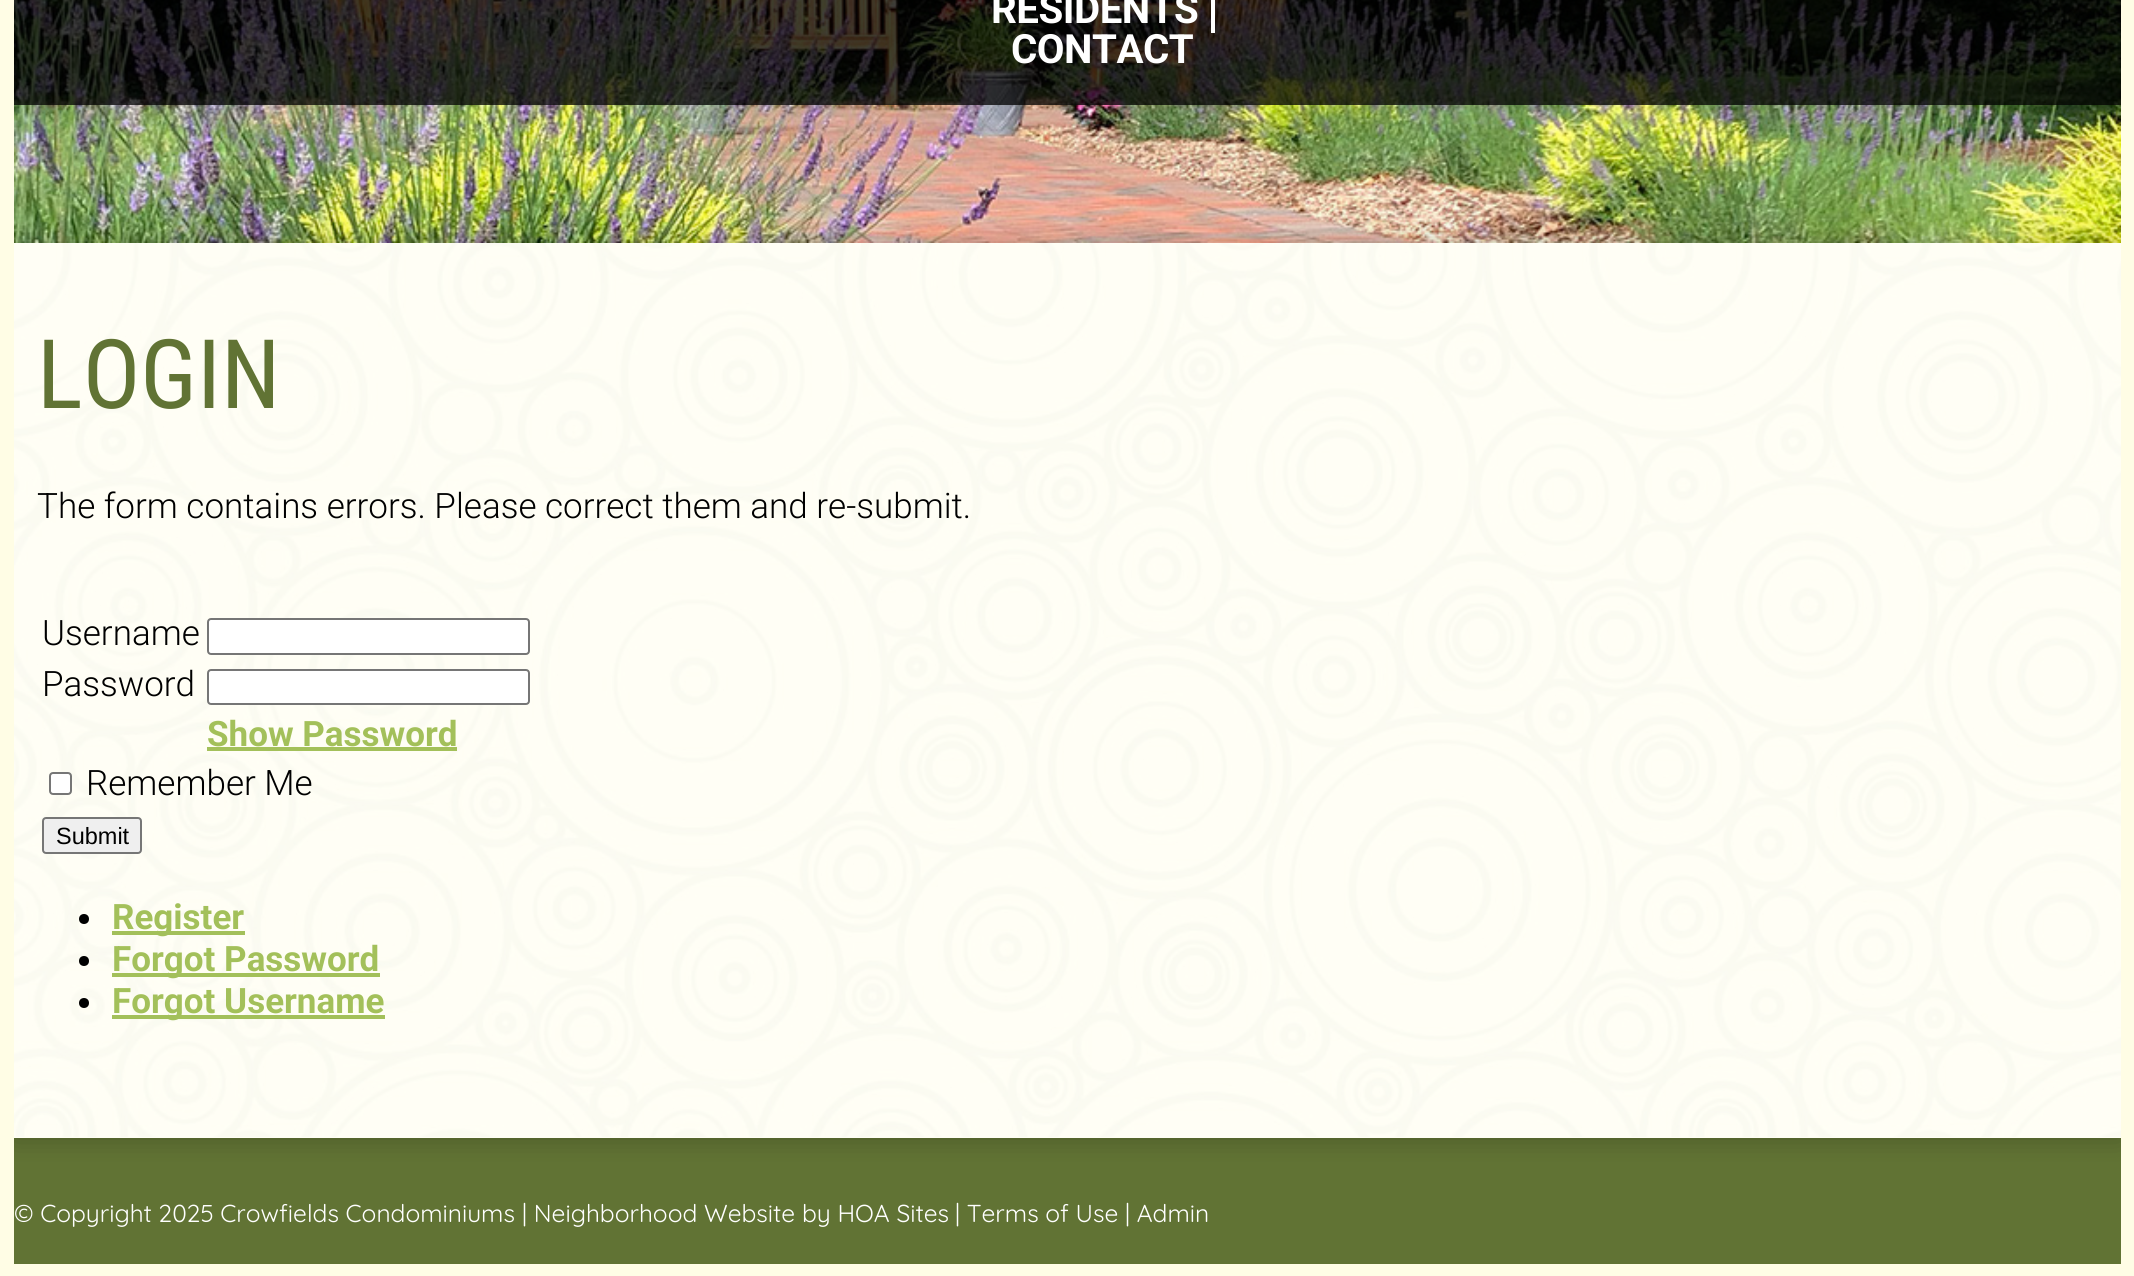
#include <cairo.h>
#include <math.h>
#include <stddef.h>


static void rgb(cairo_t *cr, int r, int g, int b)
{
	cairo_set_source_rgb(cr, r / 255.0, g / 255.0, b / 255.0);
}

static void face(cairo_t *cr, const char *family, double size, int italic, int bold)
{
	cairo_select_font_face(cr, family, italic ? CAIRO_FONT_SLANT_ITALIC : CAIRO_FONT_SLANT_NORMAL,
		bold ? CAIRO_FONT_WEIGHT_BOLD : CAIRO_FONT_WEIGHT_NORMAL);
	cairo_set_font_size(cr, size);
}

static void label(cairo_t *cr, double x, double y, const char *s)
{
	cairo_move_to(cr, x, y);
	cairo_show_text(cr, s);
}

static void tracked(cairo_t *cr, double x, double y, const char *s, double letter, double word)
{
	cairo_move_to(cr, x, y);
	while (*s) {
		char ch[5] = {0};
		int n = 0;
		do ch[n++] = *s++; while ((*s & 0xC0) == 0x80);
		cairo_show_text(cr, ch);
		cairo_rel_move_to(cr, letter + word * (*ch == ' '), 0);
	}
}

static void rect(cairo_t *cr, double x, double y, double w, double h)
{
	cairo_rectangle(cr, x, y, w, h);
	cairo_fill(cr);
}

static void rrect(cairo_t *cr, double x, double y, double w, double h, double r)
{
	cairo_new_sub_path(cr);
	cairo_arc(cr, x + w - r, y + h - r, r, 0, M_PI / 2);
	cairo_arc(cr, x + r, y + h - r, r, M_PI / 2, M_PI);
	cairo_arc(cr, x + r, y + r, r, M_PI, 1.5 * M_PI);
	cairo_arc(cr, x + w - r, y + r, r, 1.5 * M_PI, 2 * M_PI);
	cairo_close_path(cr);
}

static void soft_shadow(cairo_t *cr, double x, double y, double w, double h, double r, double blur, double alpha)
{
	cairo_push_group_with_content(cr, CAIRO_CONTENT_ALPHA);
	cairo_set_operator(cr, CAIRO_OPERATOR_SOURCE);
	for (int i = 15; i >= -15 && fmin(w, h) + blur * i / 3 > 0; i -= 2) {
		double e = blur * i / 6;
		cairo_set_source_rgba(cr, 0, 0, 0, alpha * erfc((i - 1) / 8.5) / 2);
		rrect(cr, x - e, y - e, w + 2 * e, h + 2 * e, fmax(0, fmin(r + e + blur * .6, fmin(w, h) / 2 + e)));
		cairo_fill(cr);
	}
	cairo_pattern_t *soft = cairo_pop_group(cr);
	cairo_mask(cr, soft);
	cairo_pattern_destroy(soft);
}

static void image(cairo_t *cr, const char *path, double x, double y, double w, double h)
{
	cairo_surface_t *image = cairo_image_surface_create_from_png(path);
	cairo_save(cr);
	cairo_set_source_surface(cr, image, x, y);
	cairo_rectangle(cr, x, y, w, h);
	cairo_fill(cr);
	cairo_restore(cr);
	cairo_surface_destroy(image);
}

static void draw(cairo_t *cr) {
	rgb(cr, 255, 253, 229);
	cairo_paint(cr);
	image(cr, "image0.png", 14, 0, 2107, 243);
	cairo_set_source_rgba(cr, 0, 0, 0, 0.75);
	rect(cr, 14, 0, 2107, 105);
	face(cr, "Roboto", 40.25, 0, 1);
	rgb(cr, 255, 255, 255);
	tracked(cr, 991, 23, "RESIDENTS", -0.5, 0);
	rect(cr, 1211, 0, 4, 33);
	tracked(cr, 1011, 63, "CONTACT", -0.5, 0);
	image(cr, "image1.png", 14, 243, 2107, 894);
	rgb(cr, 97, 115, 52);
	rect(cr, 14, 1138, 2107, 126);
	cairo_save(cr);
	cairo_rectangle(cr, 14, 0, 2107, 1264);
	cairo_clip(cr);
	cairo_set_fill_rule(cr, CAIRO_FILL_RULE_EVEN_ODD);
	cairo_new_path(cr);
	cairo_move_to(cr, 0, 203);
	cairo_line_to(cr, 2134, 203);
	cairo_line_to(cr, 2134, 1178);
	cairo_line_to(cr, 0, 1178);
	cairo_close_path(cr);
	cairo_move_to(cr, 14, 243);
	cairo_line_to(cr, 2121, 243);
	cairo_line_to(cr, 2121, 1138);
	cairo_line_to(cr, 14, 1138);
	cairo_close_path(cr);
	cairo_clip(cr);
	rgb(cr, 1, 2, 2);
	soft_shadow(cr, 14, 243, 2107, 895, 0, 13, 0.25);
	cairo_restore(cr);
	cairo_set_source_rgba(cr, 1, 1, 1, 0.6);
	rect(cr, 14, 243, 2107, 895);
	face(cr, "Roboto Condensed", 96, 0, 0);
	rgb(cr, 97, 115, 52);
	label(cr, 37, 408, "LOGIN");
	face(cr, "Roboto Light", 35, 0, 0);
	rgb(cr, 0, 0, 0);
	label(cr, 37, 518, "The form contains errors. Please correct them and re-submit.");
	label(cr, 42, 645, "Username");
	rgb(cr, 255, 255, 255);
	rrect(cr, 208, 619, 321, 35, 3);
	cairo_fill_preserve(cr);
	rgb(cr, 118, 118, 118);
	cairo_stroke(cr);
	rgb(cr, 0, 0, 0);
	label(cr, 42, 696, "Password");
	rgb(cr, 255, 255, 255);
	rrect(cr, 208, 670, 321, 34, 3);
	cairo_fill_preserve(cr);
	rgb(cr, 118, 118, 118);
	cairo_stroke(cr);
	face(cr, "Roboto", 35, 0, 1);
	rgb(cr, 163, 192, 90);
	label(cr, 207, 746, "Show Password");
	rect(cr, 207, 747, 250, 4);
	rgb(cr, 255, 255, 255);
	rrect(cr, 50, 773, 21, 21, 3);
	cairo_fill_preserve(cr);
	rgb(cr, 118, 118, 118);
	cairo_stroke(cr);
	face(cr, "Roboto Light", 35, 0, 0);
	rgb(cr, 0, 0, 0);
	label(cr, 86, 795, "Remember Me");
	rgb(cr, 239, 239, 239);
	rrect(cr, 43, 818, 98, 35, 3);
	cairo_fill_preserve(cr);
	rgb(cr, 118, 118, 118);
	cairo_stroke(cr);
	face(cr, "Liberation Sans", 23.5, 0, 0);
	rgb(cr, 0, 0, 0);
	label(cr, 56, 844, "Submit");
	cairo_new_path(cr);
	cairo_arc(cr, 84, 919, 5, 0, 2 * M_PI);
	cairo_fill(cr);
	rgb(cr, 163, 192, 90);
	rect(cr, 112, 931, 133, 4);
	face(cr, "Roboto", 35, 0, 1);
	label(cr, 112, 929, "Register");
	rgb(cr, 0, 0, 0);
	cairo_new_path(cr);
	cairo_arc(cr, 84, 961, 5, 0, 2 * M_PI);
	cairo_fill(cr);
	rgb(cr, 163, 192, 90);
	rect(cr, 112, 973, 268, 4);
	label(cr, 112, 971, "Forgot Password");
	rgb(cr, 0, 0, 0);
	cairo_new_path(cr);
	cairo_arc(cr, 84, 1003, 5, 0, 2 * M_PI);
	cairo_fill(cr);
	rgb(cr, 163, 192, 90);
	rect(cr, 112, 1015, 273, 4);
	label(cr, 112, 1013, "Forgot Username");
	face(cr, "Quicksand Light", 24.5, 0, 0);
	rgb(cr, 255, 255, 255);
	label(cr, 14, 1222, "© Copyright 2025 Crowfields Condominiums");
	label(cr, 522, 1222, "| Neighborhood Website");
	label(cr, 802, 1222, "by HOA Sites");
	label(cr, 955, 1222, "| Terms of Use");
	label(cr, 1125, 1222, "| Admin");
}

int main(void) {
	cairo_surface_t *surface = cairo_image_surface_create(CAIRO_FORMAT_RGB24, 2134, 1276);
	cairo_t *cr = cairo_create(surface);
	cairo_font_options_t *options = cairo_font_options_create();
	cairo_font_options_set_hint_metrics(options, CAIRO_HINT_METRICS_OFF);
	cairo_font_options_set_hint_style(options, CAIRO_HINT_STYLE_NONE);
	cairo_set_font_options(cr, options);
	cairo_set_miter_limit(cr, 4);
	draw(cr);
	cairo_surface_write_to_png(surface, "render.png");
	cairo_font_options_destroy(options);
	cairo_destroy(cr);
	cairo_surface_destroy(surface);
	return 0;
}
